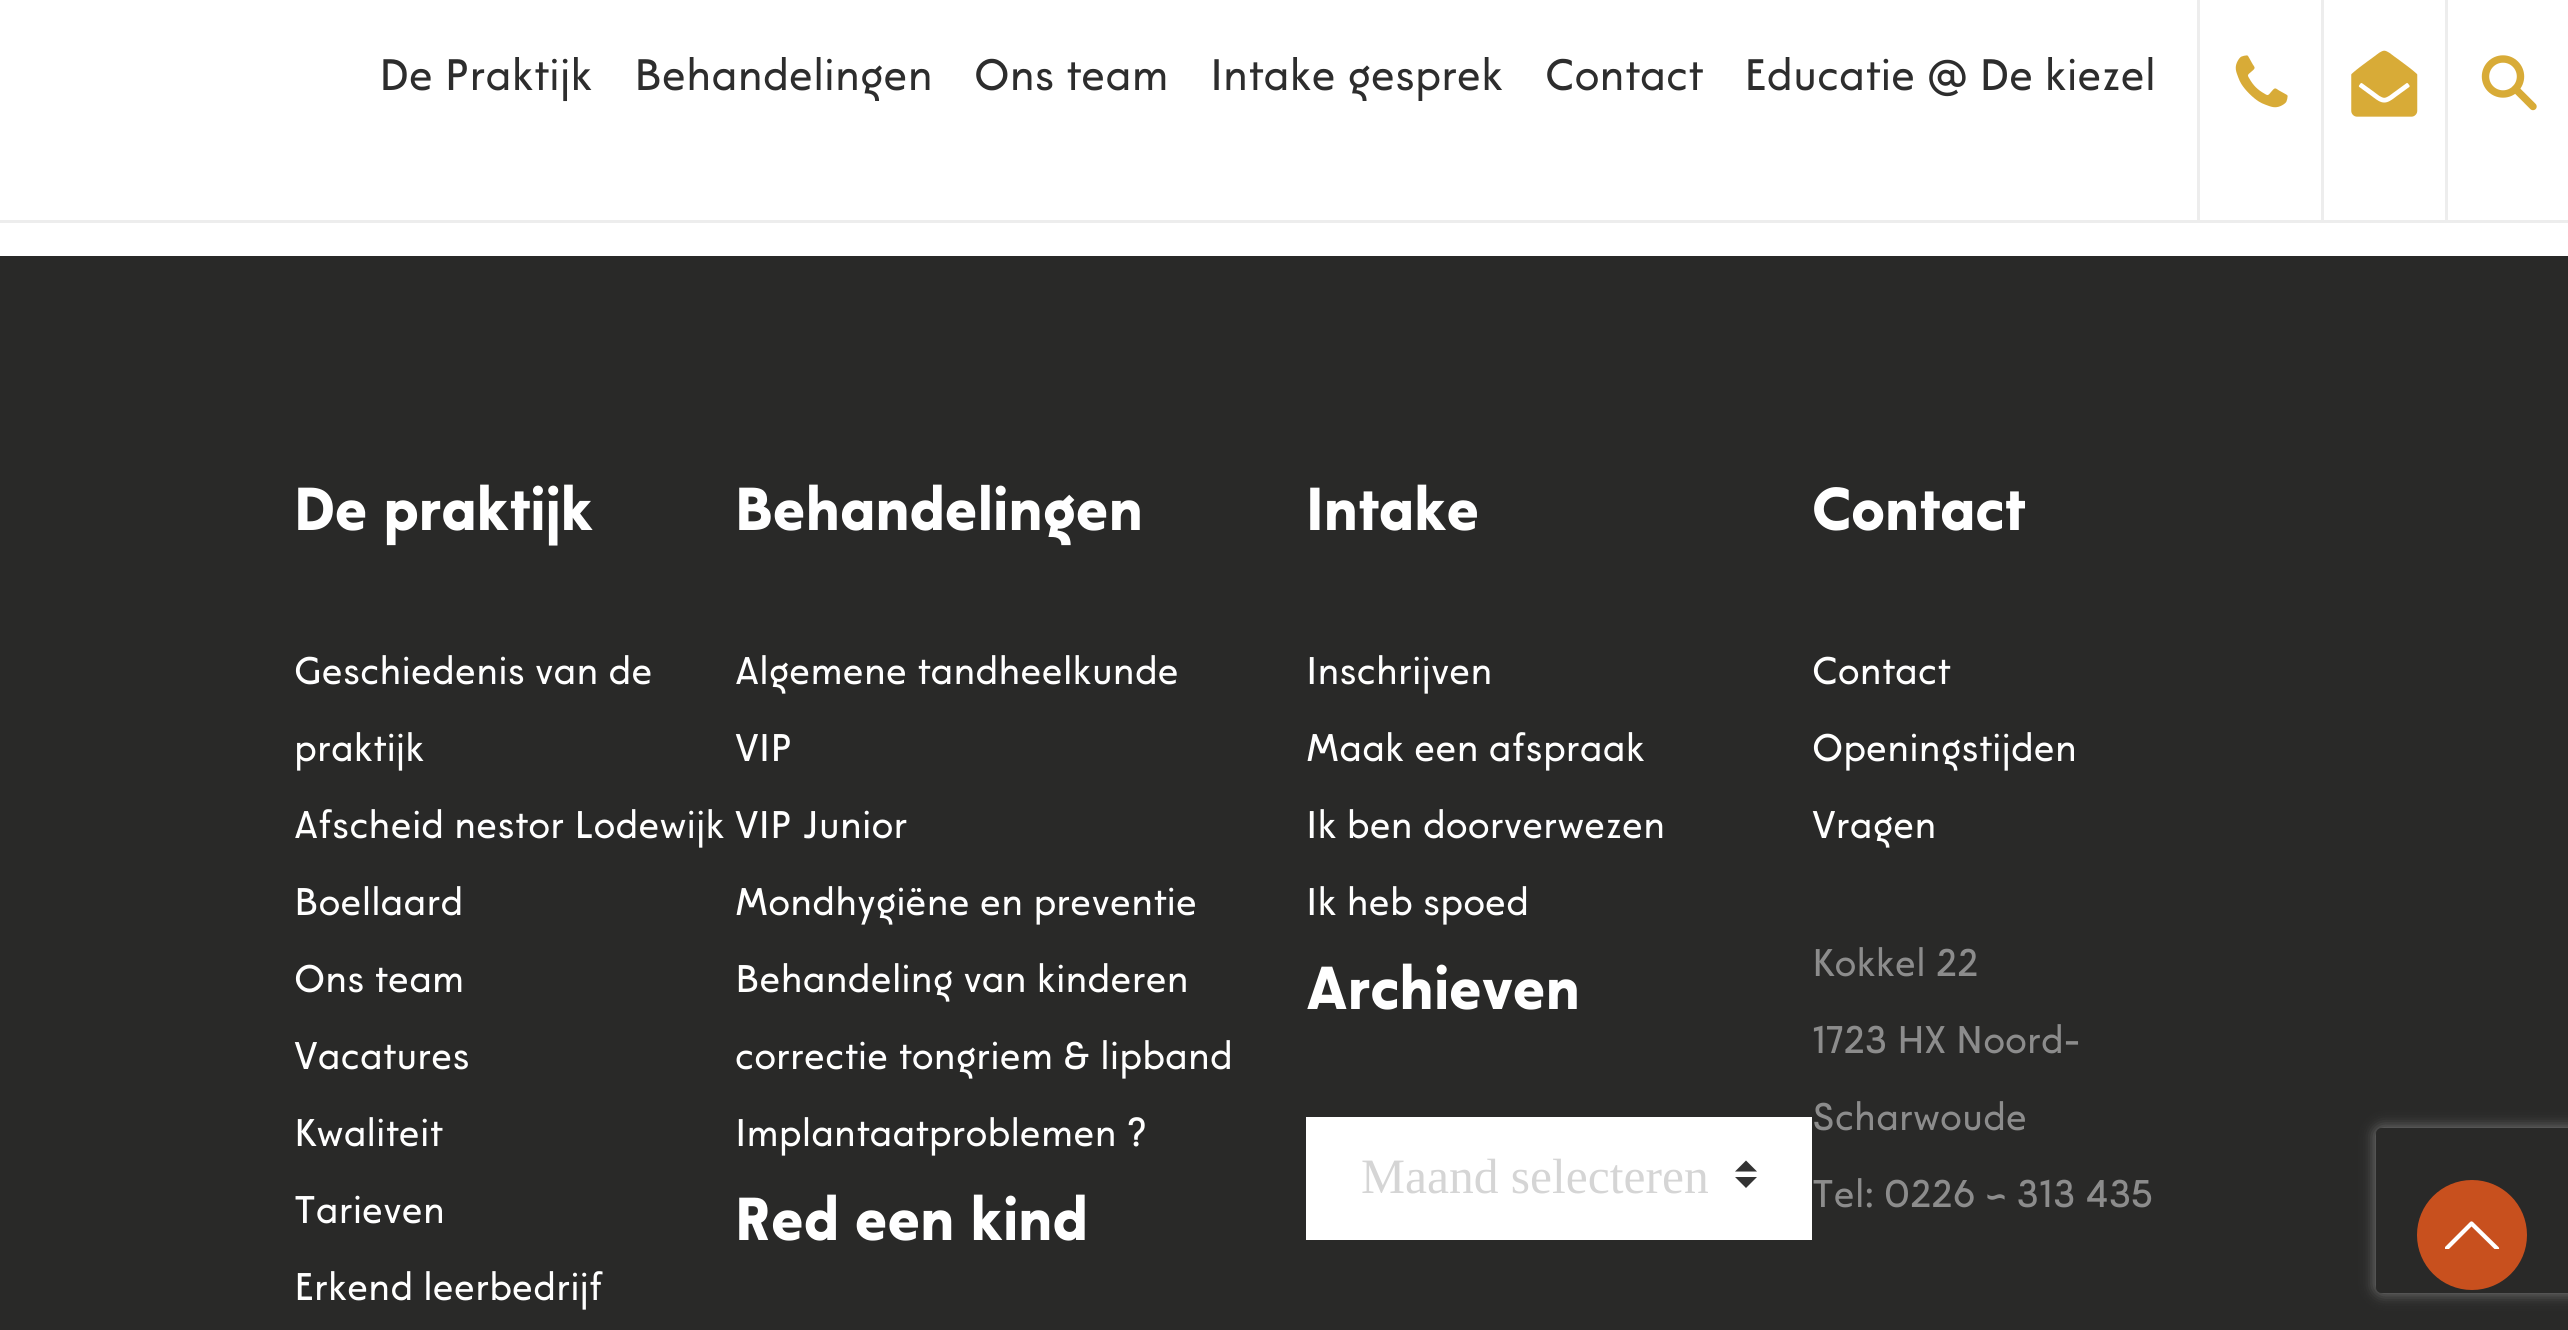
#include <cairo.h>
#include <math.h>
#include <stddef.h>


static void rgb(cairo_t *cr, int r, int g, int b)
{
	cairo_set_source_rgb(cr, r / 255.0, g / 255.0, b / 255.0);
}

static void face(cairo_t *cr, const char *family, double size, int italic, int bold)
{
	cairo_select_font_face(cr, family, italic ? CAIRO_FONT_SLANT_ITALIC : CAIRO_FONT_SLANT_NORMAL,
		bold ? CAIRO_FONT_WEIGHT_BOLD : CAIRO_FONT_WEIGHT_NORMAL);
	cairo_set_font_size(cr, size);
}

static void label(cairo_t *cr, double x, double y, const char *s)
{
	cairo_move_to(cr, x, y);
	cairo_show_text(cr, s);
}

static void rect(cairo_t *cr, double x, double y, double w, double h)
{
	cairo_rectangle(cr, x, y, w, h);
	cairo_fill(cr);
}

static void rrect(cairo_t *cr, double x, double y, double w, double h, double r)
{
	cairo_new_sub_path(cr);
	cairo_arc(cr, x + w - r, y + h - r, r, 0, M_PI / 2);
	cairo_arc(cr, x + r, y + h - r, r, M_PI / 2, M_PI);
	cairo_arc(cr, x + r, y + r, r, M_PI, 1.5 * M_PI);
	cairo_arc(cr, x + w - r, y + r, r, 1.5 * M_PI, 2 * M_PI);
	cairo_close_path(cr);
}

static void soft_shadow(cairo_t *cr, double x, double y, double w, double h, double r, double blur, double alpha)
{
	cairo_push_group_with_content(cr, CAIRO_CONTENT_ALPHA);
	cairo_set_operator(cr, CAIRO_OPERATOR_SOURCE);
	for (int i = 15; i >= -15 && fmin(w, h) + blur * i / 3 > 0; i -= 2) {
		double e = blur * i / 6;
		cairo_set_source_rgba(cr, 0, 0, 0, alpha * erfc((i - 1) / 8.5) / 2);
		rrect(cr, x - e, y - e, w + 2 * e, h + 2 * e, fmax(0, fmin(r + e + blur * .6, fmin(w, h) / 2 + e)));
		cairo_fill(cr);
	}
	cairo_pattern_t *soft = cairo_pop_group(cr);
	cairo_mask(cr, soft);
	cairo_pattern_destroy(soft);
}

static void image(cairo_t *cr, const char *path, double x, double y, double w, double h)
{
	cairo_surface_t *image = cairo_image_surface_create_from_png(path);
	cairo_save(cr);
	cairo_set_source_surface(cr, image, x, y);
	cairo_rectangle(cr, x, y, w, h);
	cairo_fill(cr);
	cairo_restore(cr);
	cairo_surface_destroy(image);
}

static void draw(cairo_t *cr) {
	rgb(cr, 255, 255, 255);
	cairo_paint(cr);
	rgb(cr, 237, 237, 237);
	rect(cr, 0, 220, 2568, 3);
	face(cr, "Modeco", 44, 0, 0);
	rgb(cr, 45, 45, 45);
	label(cr, 379, 90, "De Praktijk");
	label(cr, 634, 90, "Behandelingen");
	label(cr, 974, 90, "Ons team");
	label(cr, 1210, 90, "Intake gesprek");
	label(cr, 1545, 90, "Contact");
	label(cr, 1744, 90, "Educatie @ De kiezel");
	rgb(cr, 237, 237, 237);
	rect(cr, 2197, 0, 3, 220);
	image(cr, "image0.png", 2235, 55, 53, 53);
	rect(cr, 2321, 0, 3, 220);
	image(cr, "image1.png", 2351, 50, 67, 67);
	rect(cr, 2445, 0, 3, 220);
	cairo_arc(cr, 2503, 76.5, 17.5, 0, 2 * M_PI);
	rgb(cr, 216, 171, 55);
	cairo_set_line_width(cr, 7.4);
	cairo_stroke(cr);
	cairo_new_path(cr);
	cairo_move_to(cr, 2515.5, 89);
	cairo_line_to(cr, 2533, 106.5);
	cairo_set_line_cap(cr, CAIRO_LINE_CAP_ROUND);
	cairo_set_line_join(cr, CAIRO_LINE_JOIN_ROUND);
	cairo_stroke(cr);
	rgb(cr, 41, 41, 40);
	rect(cr, 0, 256, 2568, 1074);
	face(cr, "Modeco", 60.5, 0, 1);
	rgb(cr, 255, 255, 255);
	label(cr, 294, 530, "De praktijk");
	face(cr, "Modeco", 38.5, 0, 0);
	label(cr, 294, 684, "Geschiedenis van de");
	label(cr, 294, 761, "praktijk");
	label(cr, 294, 838, "Afscheid nestor Lodewijk VIP Junior");
	label(cr, 294, 915, "Boellaard");
	label(cr, 294, 992, "Ons team");
	label(cr, 294, 1069, "Vacatures");
	label(cr, 294, 1146, "Kwaliteit");
	label(cr, 294, 1223, "Tarieven");
	label(cr, 294, 1300, "Erkend leerbedrijf");
	face(cr, "Modeco", 60.5, 0, 1);
	label(cr, 735, 530, "Behandelingen");
	face(cr, "Modeco", 38.5, 0, 0);
	label(cr, 735, 684, "Algemene tandheelkunde");
	label(cr, 735, 761, "VIP");
	label(cr, 735, 915, "Mondhygiëne en preventie");
	label(cr, 735, 992, "Behandeling van kinderen");
	label(cr, 735, 1069, "correctie tongriem & lipband");
	label(cr, 735, 1146, "Implantaatproblemen ?");
	face(cr, "Modeco", 60.5, 0, 1);
	label(cr, 735, 1240, "Red een kind");
	label(cr, 1306, 530, "Intake");
	face(cr, "Modeco", 38.5, 0, 0);
	label(cr, 1306, 684, "Inschrijven");
	label(cr, 1306, 761, "Maak een afspraak");
	label(cr, 1306, 838, "Ik ben doorverwezen");
	label(cr, 1306, 915, "Ik heb spoed");
	face(cr, "Modeco", 60.5, 0, 1);
	label(cr, 1306, 1009, "Archieven");
	rect(cr, 1306, 1117, 506, 123);
	face(cr, "Liberation Serif", 49.5, 0, 0);
	rgb(cr, 213, 213, 213);
	label(cr, 1361, 1193, "Maand selecteren");
	rgb(cr, 51, 51, 51);
	cairo_new_path(cr);
	cairo_move_to(cr, 1757, 1171.5);
	cairo_line_to(cr, 1735, 1171.5);
	cairo_line_to(cr, 1746, 1160.5);
	cairo_close_path(cr);
	cairo_move_to(cr, 1735, 1177);
	cairo_line_to(cr, 1757, 1177);
	cairo_line_to(cr, 1746, 1188);
	cairo_close_path(cr);
	cairo_fill(cr);
	face(cr, "Modeco", 60.5, 0, 1);
	rgb(cr, 255, 255, 255);
	label(cr, 1812, 530, "Contact");
	face(cr, "Modeco", 38.5, 0, 0);
	label(cr, 1812, 684, "Contact");
	label(cr, 1812, 761, "Openingstijden");
	label(cr, 1812, 838, "Vragen");
	rgb(cr, 140, 140, 140);
	label(cr, 1812, 976, "Kokkel 22");
	label(cr, 1812, 1053, "1723 HX Noord-");
	label(cr, 1812, 1130, "Scharwoude");
	label(cr, 1812, 1207, "Tel: 0226 ~ 313 435");
	cairo_save(cr);
	cairo_set_fill_rule(cr, CAIRO_FILL_RULE_EVEN_ODD);
	cairo_new_path(cr);
	cairo_move_to(cr, 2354, 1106);
	cairo_line_to(cr, 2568, 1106);
	cairo_line_to(cr, 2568, 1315);
	cairo_line_to(cr, 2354, 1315);
	cairo_close_path(cr);
	cairo_move_to(cr, 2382, 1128);
	cairo_line_to(cr, 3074, 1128);
	cairo_curve_to(cr, 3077.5, 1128, 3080, 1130.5, 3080, 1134);
	cairo_line_to(cr, 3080, 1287);
	cairo_curve_to(cr, 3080, 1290.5, 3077.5, 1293, 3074, 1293);
	cairo_line_to(cr, 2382, 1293);
	cairo_curve_to(cr, 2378.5, 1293, 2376, 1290.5, 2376, 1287);
	cairo_line_to(cr, 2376, 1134);
	cairo_curve_to(cr, 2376, 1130.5, 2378.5, 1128, 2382, 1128);
	cairo_close_path(cr);
	cairo_clip(cr);
	rgb(cr, 128, 128, 128);
	soft_shadow(cr, 2376, 1128, 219, 165, 6, 7, 1);
	cairo_restore(cr);
	rgb(cr, 200, 80, 30);
	cairo_arc(cr, 2472, 1235, 55, 0, 2 * M_PI);
	cairo_fill(cr);
	cairo_save(cr);
	cairo_rectangle(cr, 2445, 1221, 55, 28);
	cairo_clip(cr);
	cairo_new_path(cr);
	cairo_move_to(cr, 2447, 1248);
	cairo_line_to(cr, 2471.5, 1223.5);
	cairo_line_to(cr, 2497, 1248.5);
	rgb(cr, 255, 255, 255);
	cairo_set_line_width(cr, 4.2);
	cairo_stroke(cr);
	cairo_restore(cr);
}

int main(void) {
	cairo_surface_t *surface = cairo_image_surface_create(CAIRO_FORMAT_RGB24, 2568, 1330);
	cairo_t *cr = cairo_create(surface);
	cairo_font_options_t *options = cairo_font_options_create();
	cairo_font_options_set_hint_metrics(options, CAIRO_HINT_METRICS_OFF);
	cairo_font_options_set_hint_style(options, CAIRO_HINT_STYLE_NONE);
	cairo_set_font_options(cr, options);
	cairo_set_miter_limit(cr, 4);
	draw(cr);
	cairo_surface_write_to_png(surface, "render.png");
	cairo_font_options_destroy(options);
	cairo_destroy(cr);
	cairo_surface_destroy(surface);
	return 0;
}
